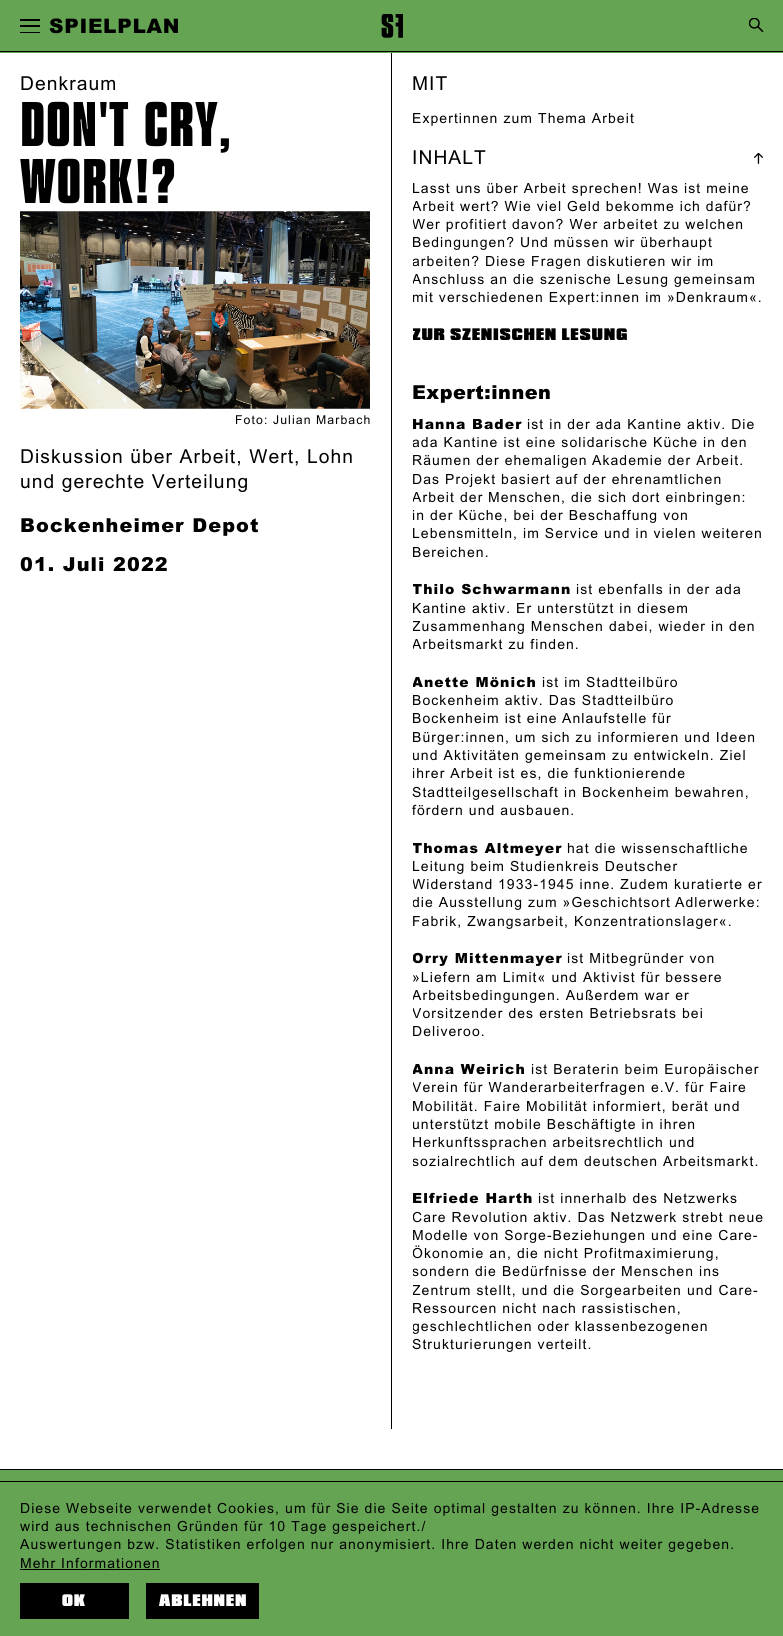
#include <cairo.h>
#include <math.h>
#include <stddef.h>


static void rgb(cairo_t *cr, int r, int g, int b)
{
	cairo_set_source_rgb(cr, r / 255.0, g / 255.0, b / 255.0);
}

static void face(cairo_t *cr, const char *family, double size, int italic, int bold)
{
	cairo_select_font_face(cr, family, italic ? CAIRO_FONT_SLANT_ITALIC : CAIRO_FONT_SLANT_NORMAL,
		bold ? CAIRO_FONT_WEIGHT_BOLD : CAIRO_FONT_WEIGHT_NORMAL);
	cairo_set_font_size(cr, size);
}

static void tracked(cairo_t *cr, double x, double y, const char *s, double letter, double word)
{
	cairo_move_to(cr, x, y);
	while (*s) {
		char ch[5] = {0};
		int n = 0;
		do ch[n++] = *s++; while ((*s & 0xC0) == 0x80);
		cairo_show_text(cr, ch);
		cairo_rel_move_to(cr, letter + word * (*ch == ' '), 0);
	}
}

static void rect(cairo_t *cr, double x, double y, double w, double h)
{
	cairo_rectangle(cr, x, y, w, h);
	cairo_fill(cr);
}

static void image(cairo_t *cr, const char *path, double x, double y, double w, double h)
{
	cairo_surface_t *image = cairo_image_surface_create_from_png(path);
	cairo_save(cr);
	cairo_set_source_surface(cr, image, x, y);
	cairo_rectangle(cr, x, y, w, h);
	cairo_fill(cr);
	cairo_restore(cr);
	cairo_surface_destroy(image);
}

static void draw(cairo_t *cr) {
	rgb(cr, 255, 255, 255);
	cairo_paint(cr);
	rgb(cr, 100, 164, 83);
	rect(cr, 0, 0, 783, 53);
	rgb(cr, 0, 0, 0);
	rect(cr, 0, 51, 783, 1);
	rect(cr, 20, 19, 20, 2);
	rect(cr, 20, 25, 20, 2);
	rect(cr, 20, 32, 20, 1);
	face(cr, "Arial Black", 20, 0, 0);
	tracked(cr, 49, 33, "SPIELPLAN", 0.75, 0);
	image(cr, "image0.png", 381, 14, 22, 24);
	image(cr, "image1.png", 749, 18, 15, 15);
	rect(cr, 391, 53, 1, 1376);
	face(cr, "Arial", 19.2, 0, 0);
	tracked(cr, 20, 90, "Denkraum", 1.1, 0);
	face(cr, "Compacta", 66, 0, 1);
	tracked(cr, 20, 146, "DON'T CRY,", 0.75, 0);
	tracked(cr, 20, 203, "WORK!?", 0.75, 0);
	image(cr, "image2.png", 20, 211, 350, 198);
	face(cr, "Arial", 12.25, 0, 0);
	tracked(cr, 235, 424, "Foto: Julian Marbach", 1.1, 0);
	face(cr, "Arial", 19.2, 0, 0);
	tracked(cr, 20, 463, "Diskussion über Arbeit, Wert, Lohn", 1.1, 0);
	tracked(cr, 20, 488, "und gerechte Verteilung", 1.1, 0);
	face(cr, "Arial Black", 19.2, 0, 0);
	tracked(cr, 20, 532, "Bockenheimer Depot", 1.1, 0);
	tracked(cr, 20, 571, "01. Juli 2022", 1.1, 0);
	face(cr, "Arial", 19.2, 0, 0);
	tracked(cr, 412, 90, "MIT", 1.1, 0);
	face(cr, "Arial", 13.93, 0, 0);
	tracked(cr, 412, 123, "Expertinnen zum Thema Arbeit", 1.1, 0);
	face(cr, "Arial", 19.2, 0, 0);
	tracked(cr, 412, 164, "INHALT", 1.1, 0);
	image(cr, "image3.png", 754, 153, 9, 11);
	cairo_save(cr);
	cairo_rectangle(cr, 413, 171, 351, 1220);
	cairo_clip(cr);
	face(cr, "Arial", 13.93, 0, 0);
	tracked(cr, 412, 193, "Lasst uns über Arbeit sprechen! Was ist meine", 1.1, 0);
	tracked(cr, 412, 211, "Arbeit wert? Wie viel Geld bekomme ich dafür?", 1.1, 0);
	tracked(cr, 412, 229, "Wer profitiert davon? Wer arbeitet zu welchen", 1.1, 0);
	tracked(cr, 412, 247, "Bedingungen? Und müssen wir überhaupt", 1.1, 0);
	tracked(cr, 412, 266, "arbeiten? Diese Fragen diskutieren wir im", 1.1, 0);
	tracked(cr, 412, 284, "Anschluss an die szenische Lesung gemeinsam", 1.1, 0);
	tracked(cr, 412, 302, "mit verschiedenen Expert:innen im »Denkraum«.", 1.1, 0);
	face(cr, "Compacta Black", 17.5, 0, 0);
	tracked(cr, 412, 340, "ZUR SZENISCHEN LESUNG", 1.25, 0);
	cairo_restore(cr);
	face(cr, "Arial Black", 19.2, 0, 0);
	tracked(cr, 412, 399, "Expert:innen", 0.5, 0);
	cairo_save(cr);
	cairo_rectangle(cr, 413, 171, 351, 1220);
	cairo_clip(cr);
	face(cr, "Arial Black", 13.93, 0, 0);
	tracked(cr, 412, 429, "Hanna Bader", 1.1, 0);
	cairo_restore(cr);
	face(cr, "Arial", 13.93, 0, 0);
	tracked(cr, 527, 429, "ist in der ada Kantine aktiv. Die", 1.1, 0);
	cairo_save(cr);
	cairo_rectangle(cr, 413, 171, 351, 1220);
	cairo_clip(cr);
	tracked(cr, 412, 447, "ada Kantine ist eine solidarische Küche in den", 1.1, 0);
	cairo_restore(cr);
	tracked(cr, 412, 465, "Räumen der ehemaligen", 1.1, 0);
	tracked(cr, 592, 465, "Akademie der Arbeit.", 1.1, 0);
	tracked(cr, 412, 484, "Das Projekt basiert auf der ehrenamtlichen", 1.1, 0);
	cairo_save(cr);
	cairo_rectangle(cr, 413, 171, 351, 1220);
	cairo_clip(cr);
	tracked(cr, 412, 502, "Arbeit der", 1.1, 0);
	cairo_restore(cr);
	tracked(cr, 488, 502, "Menschen, die sich dort einbringen:", 1.1, 0);
	cairo_save(cr);
	cairo_rectangle(cr, 413, 171, 351, 1220);
	cairo_clip(cr);
	tracked(cr, 412, 520, "in der Küche, bei der Beschaffung von", 1.1, 0);
	tracked(cr, 412, 538, "Lebensmitteln, im Service und in vielen weiteren", 1.1, 0);
	tracked(cr, 412, 557, "Bereichen.", 1.1, 0);
	face(cr, "Arial Black", 13.93, 0, 0);
	tracked(cr, 412, 594, "Thilo Schwarmann", 1.1, 0);
	cairo_restore(cr);
	tracked(cr, 576, 594, "ist ebenfalls in der ada", 1.1, 0);
	cairo_save(cr);
	cairo_rectangle(cr, 413, 171, 351, 1220);
	cairo_clip(cr);
	tracked(cr, 412, 613, "Kantine", 1.1, 0);
	cairo_restore(cr);
	tracked(cr, 472, 613, "aktiv. Er unterstützt in diesem", 1.1, 0);
	cairo_save(cr);
	cairo_rectangle(cr, 413, 171, 351, 1220);
	cairo_clip(cr);
	tracked(cr, 412, 631, "Zusammenhang Menschen dabei, wieder in den", 1.1, 0);
	tracked(cr, 412, 649, "Arbeitsmarkt zu finden.", 1.1, 0);
	face(cr, "Arial Black", 13.93, 0, 0);
	tracked(cr, 412, 687, "Anette Mönich", 1.1, 0);
	cairo_restore(cr);
	tracked(cr, 542, 687, "ist im Stadtteilbüro", 1.1, 0);
	cairo_save(cr);
	cairo_rectangle(cr, 413, 171, 351, 1220);
	cairo_clip(cr);
	tracked(cr, 412, 705, "Bockenheim aktiv. Das Stadtteilbüro", 1.1, 0);
	tracked(cr, 412, 723, "Bockenheim ist eine", 1.1, 0);
	cairo_restore(cr);
	tracked(cr, 562, 723, "Anlaufstelle für", 1.1, 0);
	cairo_save(cr);
	cairo_rectangle(cr, 413, 171, 351, 1220);
	cairo_clip(cr);
	tracked(cr, 412, 742, "Bürger:innen, um sich zu informieren und Ideen", 1.1, 0);
	tracked(cr, 412, 760, "und Aktivitäten", 1.1, 0);
	cairo_restore(cr);
	tracked(cr, 525, 760, "gemeinsam zu entwickeln. Ziel", 1.1, 0);
	cairo_save(cr);
	cairo_rectangle(cr, 413, 171, 351, 1220);
	cairo_clip(cr);
	tracked(cr, 412, 778, "ihrer Arbeit ist es, die funktionierende", 1.1, 0);
	cairo_restore(cr);
	tracked(cr, 412, 797, "Stadtteilgesellschaft in Bockenheim bewahren,", 1.1, 0);
	tracked(cr, 412, 815, "fördern und ausbauen.", 1.1, 0);
	cairo_save(cr);
	cairo_rectangle(cr, 413, 171, 351, 1220);
	cairo_clip(cr);
	face(cr, "Arial Black", 13.93, 0, 0);
	tracked(cr, 412, 853, "Thomas Altmeyer", 1.1, 0);
	cairo_restore(cr);
	tracked(cr, 567, 853, "hat die wissenschaftliche", 1.1, 0);
	cairo_save(cr);
	cairo_rectangle(cr, 413, 171, 351, 1220);
	cairo_clip(cr);
	tracked(cr, 412, 871, "Leitung beim Studienkreis Deutscher", 1.1, 0);
	tracked(cr, 412, 889, "Widerstand", 1.1, 0);
	cairo_restore(cr);
	tracked(cr, 498, 889, "1933-1945 inne. Zudem kuratierte er", 1.1, 0);
	cairo_save(cr);
	cairo_rectangle(cr, 413, 171, 351, 1220);
	cairo_clip(cr);
	tracked(cr, 412, 907, "die Ausstellung zum »Geschichtsort", 1.1, 0);
	cairo_restore(cr);
	tracked(cr, 675, 907, "Adlerwerke:", 1.1, 0);
	tracked(cr, 412, 926, "Fabrik, Zwangsarbeit, Konzentrationslager«.", 1.1, 0);
	cairo_save(cr);
	cairo_rectangle(cr, 413, 171, 351, 1220);
	cairo_clip(cr);
	face(cr, "Arial Black", 13.93, 0, 0);
	tracked(cr, 412, 963, "Orry Mittenmayer", 1.1, 0);
	cairo_restore(cr);
	tracked(cr, 567, 963, "ist Mitbegründer von", 1.1, 0);
	tracked(cr, 412, 982, "»Liefern am Limit« und Aktivist für bessere", 1.1, 0);
	cairo_save(cr);
	cairo_rectangle(cr, 413, 171, 351, 1220);
	cairo_clip(cr);
	tracked(cr, 412, 1000, "Arbeitsbedingungen. Außerdem war er", 1.1, 0);
	tracked(cr, 412, 1018, "Vorsitzender des ersten Betriebsrats bei", 1.1, 0);
	cairo_restore(cr);
	tracked(cr, 412, 1036, "Deliveroo.", 1.1, 0);
	cairo_save(cr);
	cairo_rectangle(cr, 413, 171, 351, 1220);
	cairo_clip(cr);
	face(cr, "Arial Black", 13.93, 0, 0);
	tracked(cr, 412, 1074, "Anna Weirich", 1.1, 0);
	cairo_restore(cr);
	tracked(cr, 531, 1074, "ist Beraterin beim Europäischer", 1.1, 0);
	cairo_save(cr);
	cairo_rectangle(cr, 413, 171, 351, 1220);
	cairo_clip(cr);
	tracked(cr, 412, 1092, "Verein für Wanderarbeiterfragen e.V. für Faire", 1.1, 0);
	cairo_restore(cr);
	tracked(cr, 412, 1111, "Mobilität. Faire Mobilität informiert, berät und", 1.1, 0);
	cairo_save(cr);
	cairo_rectangle(cr, 413, 171, 351, 1220);
	cairo_clip(cr);
	tracked(cr, 412, 1129, "unterstützt mobile Beschäftigte in ihren", 1.1, 0);
	cairo_restore(cr);
	tracked(cr, 412, 1147, "Herkunftssprachen arbeitsrechtlich und", 1.1, 0);
	cairo_save(cr);
	cairo_rectangle(cr, 413, 171, 351, 1220);
	cairo_clip(cr);
	tracked(cr, 412, 1166, "sozialrechtlich auf dem deutschen", 1.1, 0);
	cairo_restore(cr);
	tracked(cr, 663, 1166, "Arbeitsmarkt.", 1.1, 0);
	cairo_save(cr);
	cairo_rectangle(cr, 413, 171, 351, 1220);
	cairo_clip(cr);
	face(cr, "Arial Black", 13.93, 0, 0);
	tracked(cr, 412, 1203, "Elfriede Harth", 1.1, 0);
	cairo_restore(cr);
	tracked(cr, 538, 1203, "ist innerhalb des Netzwerks", 1.1, 0);
	cairo_save(cr);
	cairo_rectangle(cr, 413, 171, 351, 1220);
	cairo_clip(cr);
	tracked(cr, 412, 1222, "Care Revolution aktiv. Das Netzwerk strebt neue", 1.1, 0);
	cairo_restore(cr);
	tracked(cr, 412, 1240, "Modelle von Sorge-Beziehungen und eine Care-", 1.1, 0);
	cairo_save(cr);
	cairo_rectangle(cr, 413, 171, 351, 1220);
	cairo_clip(cr);
	tracked(cr, 412, 1258, "Ökonomie an, die nicht Profitmaximierung,", 1.1, 0);
	tracked(cr, 412, 1276, "sondern die Bedürfnisse der Menschen ins", 1.1, 0);
	tracked(cr, 412, 1295, "Zentrum stellt, und die Sorgearbeiten und Care-", 1.1, 0);
	cairo_restore(cr);
	tracked(cr, 412, 1313, "Ressourcen nicht nach rassistischen,", 1.1, 0);
	cairo_save(cr);
	cairo_rectangle(cr, 413, 171, 351, 1220);
	cairo_clip(cr);
	tracked(cr, 412, 1331, "geschlechtlichen oder klassenbezogenen", 1.1, 0);
	cairo_restore(cr);
	tracked(cr, 412, 1349, "Strukturierungen verteilt.", 1.1, 0);
	rgb(cr, 100, 164, 83);
	rect(cr, 0, 1470, 783, 11);
	rgb(cr, 0, 0, 0);
	rect(cr, 0, 1469, 783, 1);
	rgb(cr, 100, 164, 83);
	rect(cr, 0, 1482, 783, 154);
	rgb(cr, 0, 0, 0);
	rect(cr, 0, 1481, 783, 1);
	tracked(cr, 20, 1513, "Diese Webseite verwendet Cookies, um für Sie die Seite optimal gestalten zu können. Ihre IP-Adresse", 1.1, 0);
	tracked(cr, 20, 1531, "wird aus technischen Gründen für 10 Tage gespeichert./", 1.1, 0);
	tracked(cr, 20, 1549, "Auswertungen bzw. Statistiken erfolgen nur anonymisiert. Ihre Daten werden nicht weiter gegeben.", 1.1, 0);
	tracked(cr, 20, 1568, "Mehr Informationen", 1.1, 0);
	rect(cr, 20, 1569, 140, 1);
	rect(cr, 20, 1583, 109, 36);
	face(cr, "Compacta Black", 17.5, 0, 0);
	rgb(cr, 255, 255, 255);
	tracked(cr, 62, 1606, "OK", 1.25, 0);
	rgb(cr, 0, 0, 0);
	rect(cr, 146, 1583, 113, 36);
	rgb(cr, 255, 255, 255);
	tracked(cr, 159, 1606, "ABLEHNEN", 1.25, 0);
}

int main(void) {
	cairo_surface_t *surface = cairo_image_surface_create(CAIRO_FORMAT_RGB24, 783, 1636);
	cairo_t *cr = cairo_create(surface);
	cairo_font_options_t *options = cairo_font_options_create();
	cairo_font_options_set_hint_metrics(options, CAIRO_HINT_METRICS_OFF);
	cairo_font_options_set_hint_style(options, CAIRO_HINT_STYLE_NONE);
	cairo_set_font_options(cr, options);
	cairo_set_miter_limit(cr, 4);
	draw(cr);
	cairo_surface_write_to_png(surface, "render.png");
	cairo_font_options_destroy(options);
	cairo_destroy(cr);
	cairo_surface_destroy(surface);
	return 0;
}
